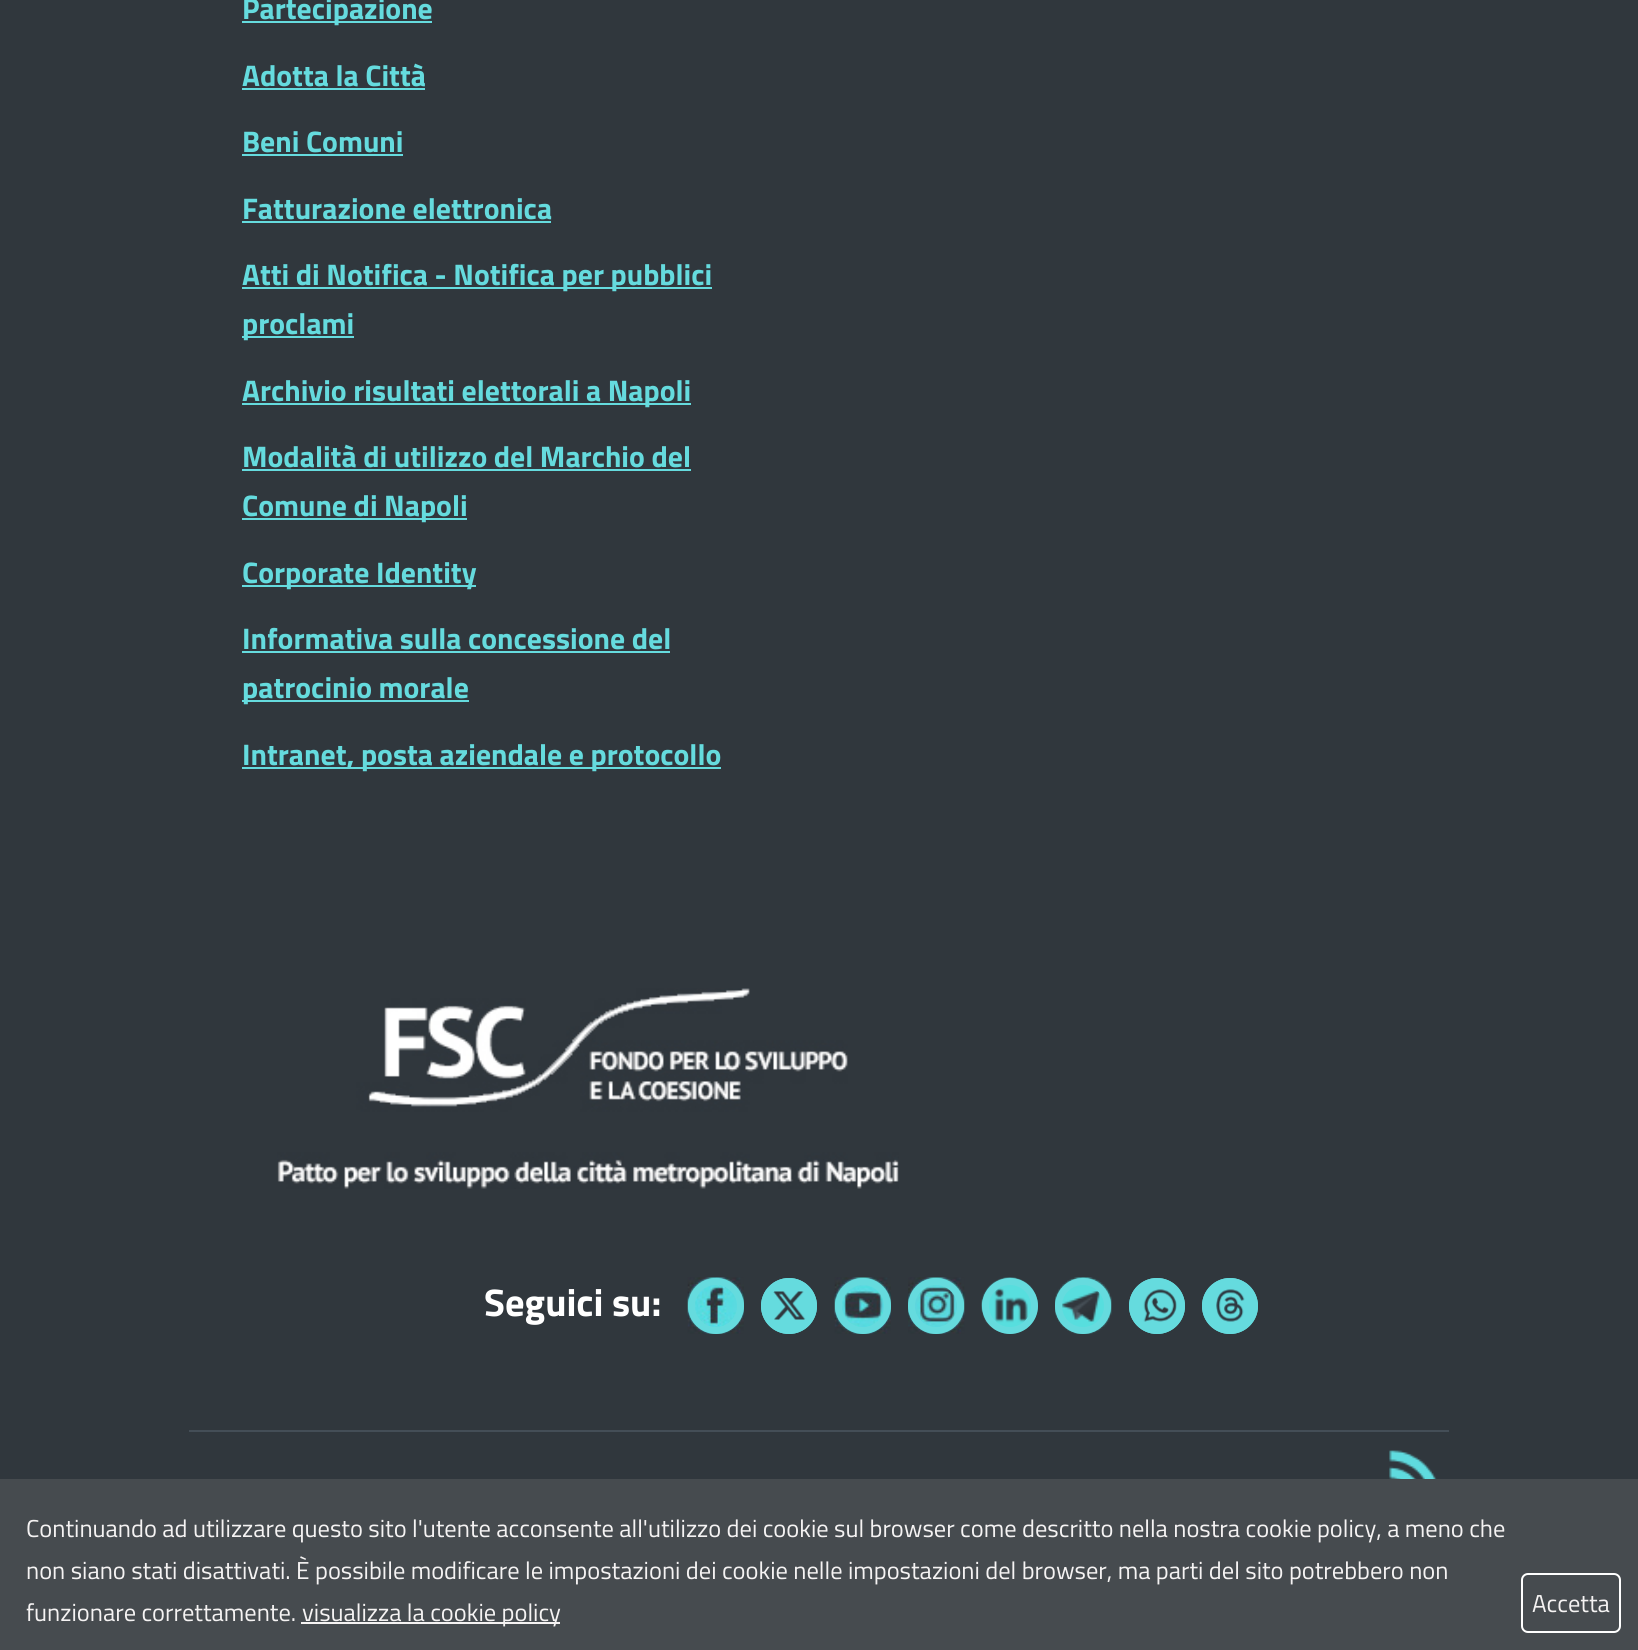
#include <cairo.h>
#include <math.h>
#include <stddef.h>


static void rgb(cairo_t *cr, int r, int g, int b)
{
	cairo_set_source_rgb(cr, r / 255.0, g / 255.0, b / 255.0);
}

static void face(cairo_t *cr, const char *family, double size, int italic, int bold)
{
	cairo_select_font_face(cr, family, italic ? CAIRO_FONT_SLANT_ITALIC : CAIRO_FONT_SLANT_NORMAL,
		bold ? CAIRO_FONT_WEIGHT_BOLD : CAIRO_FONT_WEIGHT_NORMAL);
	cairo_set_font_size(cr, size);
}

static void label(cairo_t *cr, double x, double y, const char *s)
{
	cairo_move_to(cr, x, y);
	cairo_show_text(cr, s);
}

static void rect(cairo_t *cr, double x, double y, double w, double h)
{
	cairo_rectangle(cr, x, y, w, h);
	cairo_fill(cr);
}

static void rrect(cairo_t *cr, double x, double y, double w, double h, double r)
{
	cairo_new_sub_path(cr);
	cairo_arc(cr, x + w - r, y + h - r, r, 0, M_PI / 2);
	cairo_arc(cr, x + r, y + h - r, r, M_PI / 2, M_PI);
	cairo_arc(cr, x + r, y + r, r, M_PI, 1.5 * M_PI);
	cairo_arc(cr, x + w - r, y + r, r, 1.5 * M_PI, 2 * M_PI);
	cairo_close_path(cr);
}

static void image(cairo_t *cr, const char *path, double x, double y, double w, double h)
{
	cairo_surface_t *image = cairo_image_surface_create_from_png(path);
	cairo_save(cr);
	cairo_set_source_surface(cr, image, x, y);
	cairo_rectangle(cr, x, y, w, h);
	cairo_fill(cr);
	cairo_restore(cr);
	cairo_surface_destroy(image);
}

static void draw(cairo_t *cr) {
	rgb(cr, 48, 55, 61);
	cairo_paint(cr);
	rgb(cr, 101, 219, 222);
	rect(cr, 242, 21, 190, 2);
	face(cr, "Titillium Web", 29.75, 0, 1);
	label(cr, 242, 19, "Partecipazione");
	label(cr, 242, 86, "Adotta la Città");
	rect(cr, 242, 88, 183, 2);
	label(cr, 242, 152, "Beni Comuni");
	rect(cr, 242, 154, 161, 2);
	label(cr, 242, 219, "Fatturazione elettronica");
	rect(cr, 242, 221, 309, 2);
	rect(cr, 242, 287, 470, 2);
	label(cr, 242, 285, "Atti di Notifica - Notifica per pubblici");
	rect(cr, 242, 336, 112, 2);
	label(cr, 242, 334, "proclami");
	rect(cr, 242, 403, 449, 2);
	label(cr, 242, 401, "Archivio risultati elettorali a Napoli");
	label(cr, 242, 467, "Modalità di utilizzo del Marchio del");
	rect(cr, 242, 469, 449, 2);
	rect(cr, 242, 518, 225, 2);
	label(cr, 242, 516, "Comune di Napoli");
	rect(cr, 242, 585, 234, 2);
	label(cr, 242, 583, "Corporate Identity");
	label(cr, 242, 649, "Informativa sulla concessione del");
	rect(cr, 242, 651, 428, 2);
	rect(cr, 242, 700, 227, 2);
	label(cr, 242, 698, "patrocinio morale");
	rect(cr, 242, 767, 479, 2);
	label(cr, 242, 765, "Intranet, posta aziendale e protocollo");
	rgb(cr, 68, 78, 87);
	rect(cr, 189, 1430, 1260, 2);
	image(cr, "image0.png", 277, 988, 622, 201);
	face(cr, "Titillium Web", 38.5, 0, 1);
	rgb(cr, 255, 255, 255);
	label(cr, 484, 1316, "Seguici su:");
	image(cr, "image1.png", 687, 1277, 57, 57);
	cairo_arc(cr, 716, 1306, 24.5, 0, 2 * M_PI);
	rgb(cr, 101, 219, 222);
	cairo_set_line_width(cr, 7);
	cairo_stroke(cr);
	cairo_arc(cr, 789, 1306, 28, 0, 2 * M_PI);
	cairo_fill(cr);
	image(cr, "image2.png", 773, 1291, 33, 29);
	cairo_arc(cr, 789, 1306, 24.5, 0, 2 * M_PI);
	cairo_stroke(cr);
	image(cr, "image3.png", 834, 1277, 57, 57);
	cairo_arc(cr, 863, 1306, 24.5, 0, 2 * M_PI);
	cairo_stroke(cr);
	image(cr, "image4.png", 908, 1277, 57, 57);
	cairo_arc(cr, 936, 1306, 24.5, 0, 2 * M_PI);
	cairo_stroke(cr);
	image(cr, "image5.png", 981, 1277, 57, 57);
	cairo_arc(cr, 1010, 1306, 24.5, 0, 2 * M_PI);
	cairo_stroke(cr);
	image(cr, "image6.png", 1055, 1277, 57, 57);
	cairo_arc(cr, 1083, 1306, 24.5, 0, 2 * M_PI);
	cairo_stroke(cr);
	cairo_arc(cr, 1157, 1306, 28, 0, 2 * M_PI);
	cairo_fill(cr);
	image(cr, "image7.png", 1143, 1289, 34, 33);
	cairo_arc(cr, 1157, 1306, 24.5, 0, 2 * M_PI);
	cairo_stroke(cr);
	cairo_arc(cr, 1230, 1306, 28, 0, 2 * M_PI);
	cairo_fill(cr);
	image(cr, "image8.png", 1216, 1289, 29, 33);
	cairo_arc(cr, 1230, 1306, 24.5, 0, 2 * M_PI);
	cairo_stroke(cr);
	image(cr, "image9.png", 1389, 1450, 48, 29);
	rgb(cr, 70, 75, 79);
	rect(cr, 0, 1479, 1638, 171);
	face(cr, "Titillium Web", 24.5, 0, 0);
	rgb(cr, 245, 243, 243);
	label(cr, 26, 1537, "Continuando ad utilizzare questo sito l'utente acconsente all'utilizzo dei cookie sul browser come descritto nella nostra cookie policy, a meno che");
	label(cr, 26, 1579, "non siano stati disattivati. È possibile modificare le impostazioni dei cookie nelle impostazioni del browser, ma parti del sito potrebbero non");
	label(cr, 26, 1621, "funzionare correttamente.");
	rect(cr, 301, 1622, 259, 2);
	label(cr, 302, 1621, "visualizza la cookie policy");
	rrect(cr, 1522, 1574, 98, 58, 6);
	rgb(cr, 255, 255, 255);
	cairo_set_line_width(cr, 2);
	cairo_stroke(cr);
	rgb(cr, 245, 243, 243);
	label(cr, 1532, 1612, "Accetta");
}

int main(void) {
	cairo_surface_t *surface = cairo_image_surface_create(CAIRO_FORMAT_RGB24, 1638, 1650);
	cairo_t *cr = cairo_create(surface);
	cairo_font_options_t *options = cairo_font_options_create();
	cairo_font_options_set_hint_metrics(options, CAIRO_HINT_METRICS_OFF);
	cairo_font_options_set_hint_style(options, CAIRO_HINT_STYLE_NONE);
	cairo_set_font_options(cr, options);
	cairo_set_miter_limit(cr, 4);
	draw(cr);
	cairo_surface_write_to_png(surface, "render.png");
	cairo_font_options_destroy(options);
	cairo_destroy(cr);
	cairo_surface_destroy(surface);
	return 0;
}
